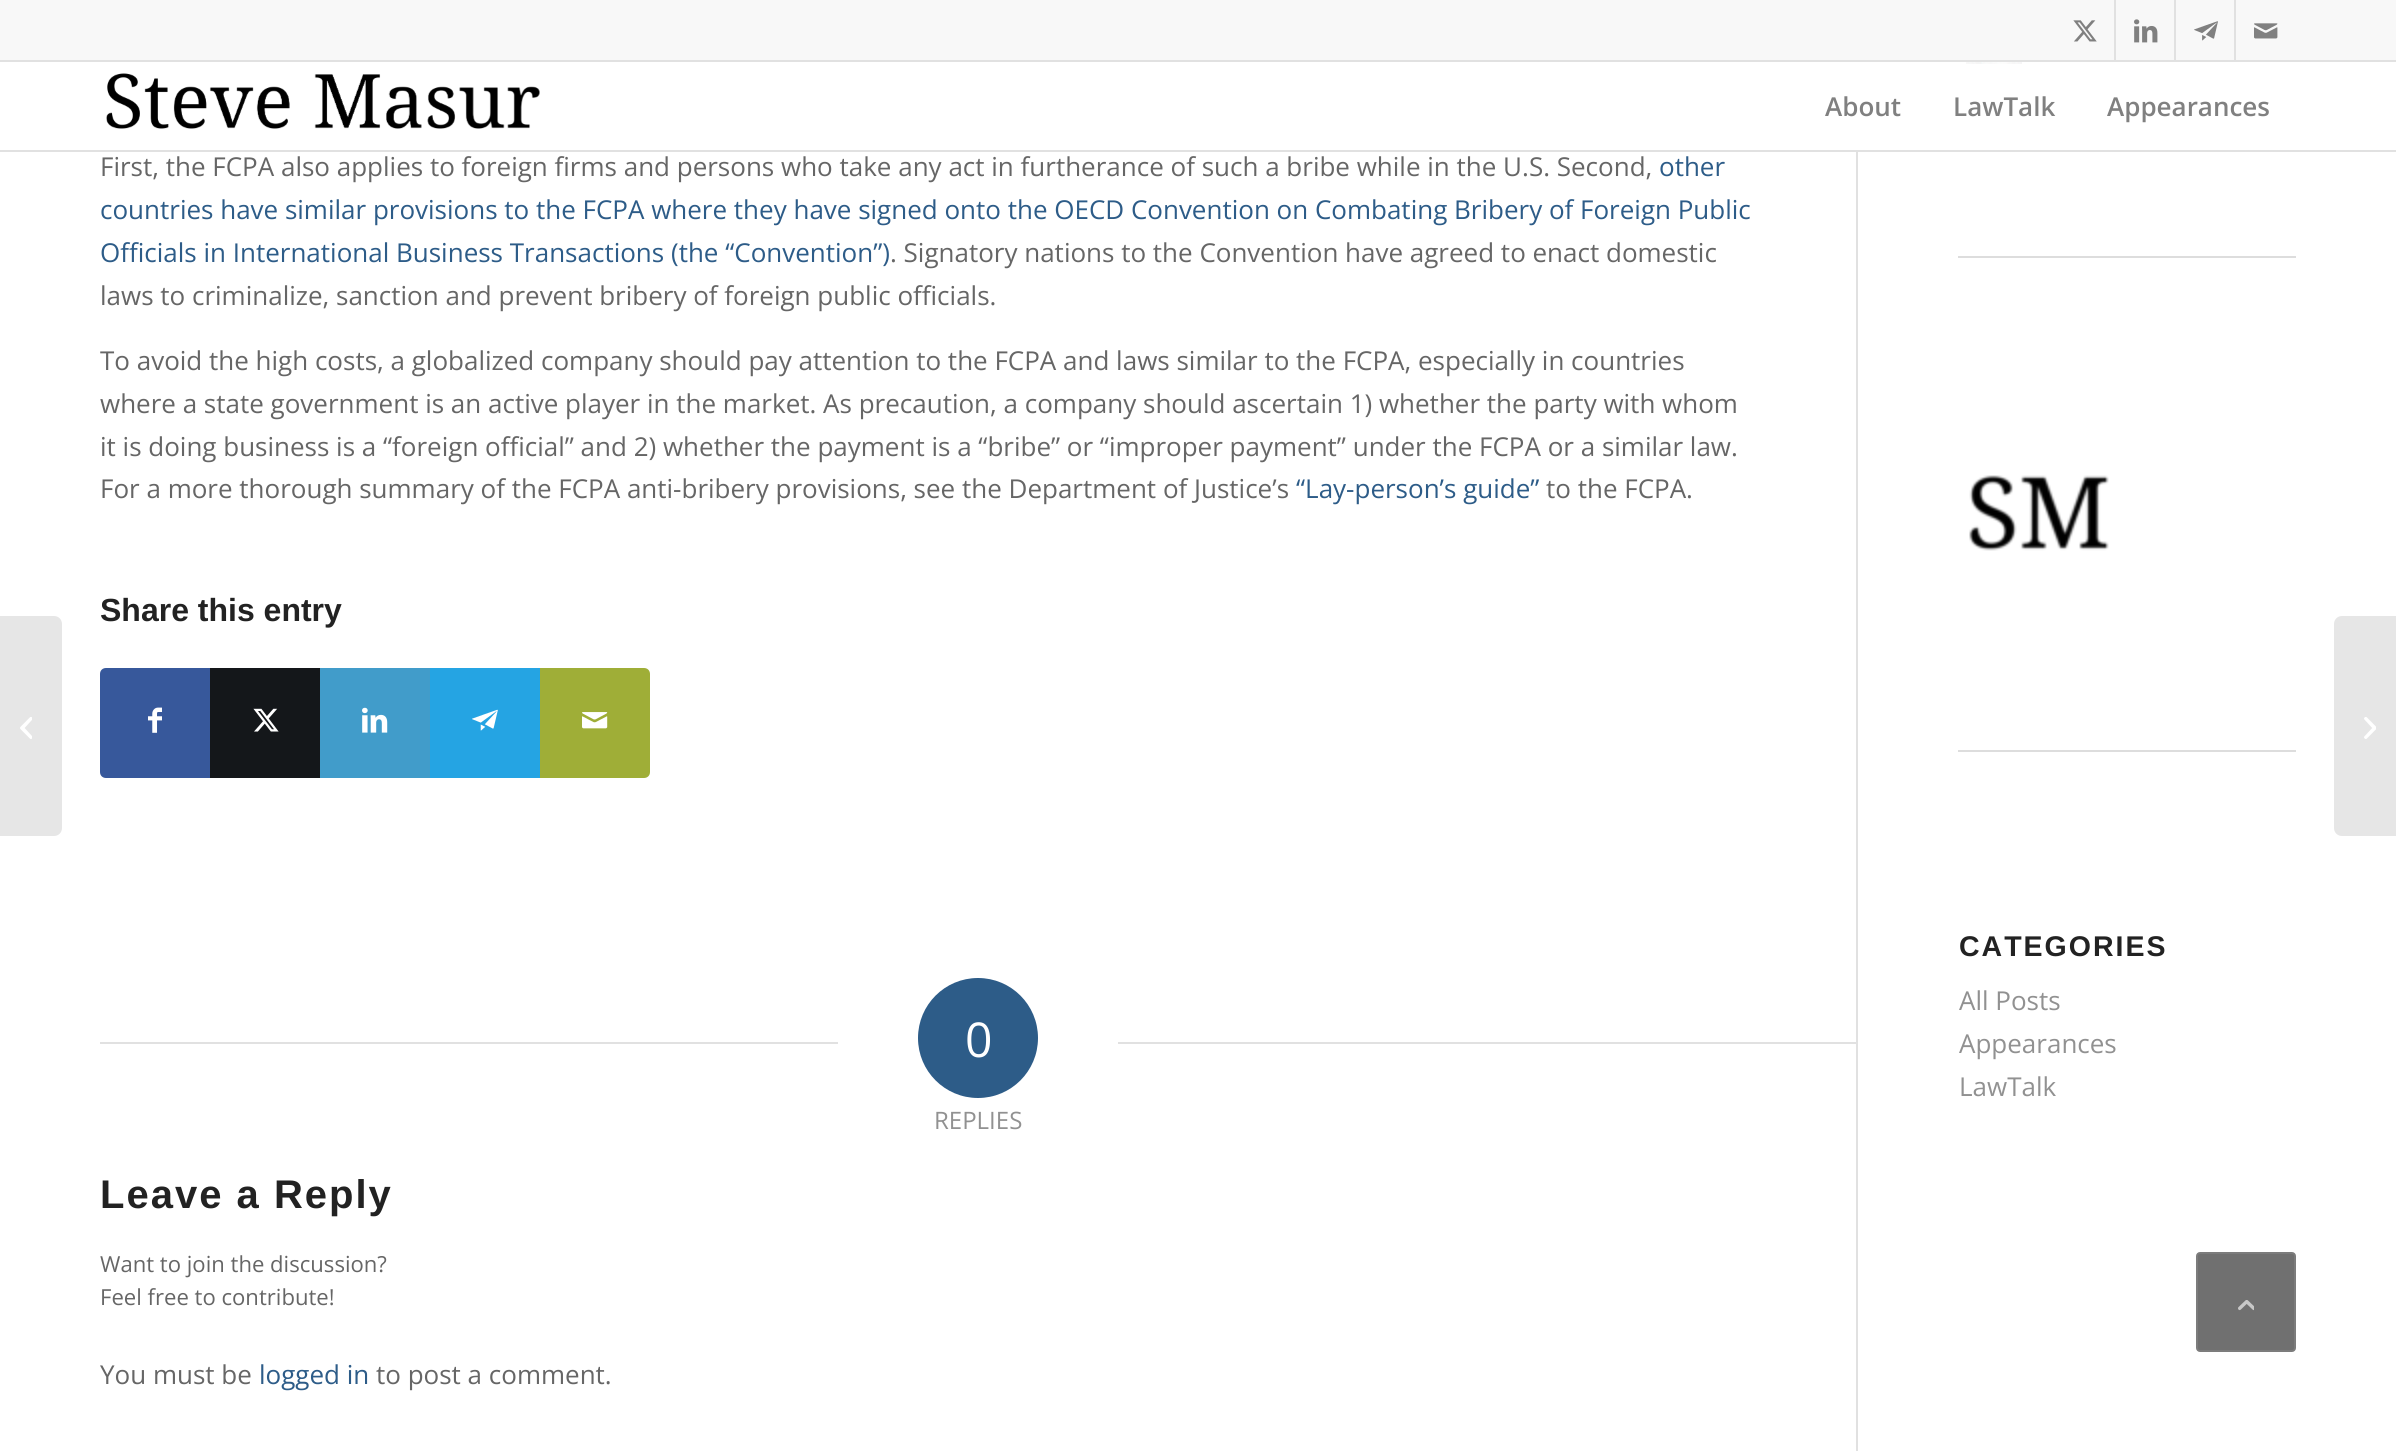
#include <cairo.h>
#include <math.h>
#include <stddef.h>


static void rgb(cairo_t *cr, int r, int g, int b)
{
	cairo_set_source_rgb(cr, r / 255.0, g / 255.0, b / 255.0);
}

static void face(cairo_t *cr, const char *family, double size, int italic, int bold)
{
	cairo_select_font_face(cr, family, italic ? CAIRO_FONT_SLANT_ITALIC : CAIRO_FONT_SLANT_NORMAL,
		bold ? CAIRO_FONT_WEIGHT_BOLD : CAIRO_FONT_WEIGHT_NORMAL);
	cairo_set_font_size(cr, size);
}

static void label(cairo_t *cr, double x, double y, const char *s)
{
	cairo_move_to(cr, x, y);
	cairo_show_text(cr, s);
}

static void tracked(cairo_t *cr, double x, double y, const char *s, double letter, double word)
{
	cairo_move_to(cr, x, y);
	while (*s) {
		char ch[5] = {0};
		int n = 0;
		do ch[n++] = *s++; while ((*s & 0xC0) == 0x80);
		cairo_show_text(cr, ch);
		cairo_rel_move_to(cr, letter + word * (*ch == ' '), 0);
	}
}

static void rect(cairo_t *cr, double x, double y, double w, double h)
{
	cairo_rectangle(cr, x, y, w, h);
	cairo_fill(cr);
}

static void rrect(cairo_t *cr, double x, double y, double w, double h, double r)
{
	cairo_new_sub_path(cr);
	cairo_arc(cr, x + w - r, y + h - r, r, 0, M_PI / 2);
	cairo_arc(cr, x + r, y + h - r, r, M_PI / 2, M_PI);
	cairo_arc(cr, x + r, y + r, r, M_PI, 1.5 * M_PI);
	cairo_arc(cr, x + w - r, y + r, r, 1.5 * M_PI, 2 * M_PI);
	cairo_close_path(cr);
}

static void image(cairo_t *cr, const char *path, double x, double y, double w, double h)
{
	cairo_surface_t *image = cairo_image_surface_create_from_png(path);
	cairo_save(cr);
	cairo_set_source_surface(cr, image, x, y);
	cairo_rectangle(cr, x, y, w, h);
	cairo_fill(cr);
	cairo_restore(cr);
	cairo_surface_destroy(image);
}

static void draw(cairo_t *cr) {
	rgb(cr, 255, 255, 255);
	cairo_paint(cr);
	rgb(cr, 248, 248, 248);
	rect(cr, 0, 0, 2396, 60);
	rgb(cr, 225, 225, 225);
	rect(cr, 0, 60, 2396, 2);
	rect(cr, 2114, 0, 2, 60);
	image(cr, "image0.png", 2073, 20, 24, 22);
	rect(cr, 2174, 0, 2, 60);
	image(cr, "image1.png", 2134, 19, 24, 24);
	rect(cr, 2234, 0, 2, 60);
	image(cr, "image2.png", 2194, 21, 24, 20);
	image(cr, "image3.png", 2254, 23, 24, 16);
	rect(cr, 0, 150, 2396, 2);
	image(cr, "image4.png", 106, 73, 434, 56);
	face(cr, "Open Sans SemiBold", 26, 0, 0);
	rgb(cr, 128, 128, 128);
	label(cr, 1825, 116, "About");
	label(cr, 1953, 116, "LawTalk");
	label(cr, 2107, 116, "Appearances");
	rgb(cr, 230, 230, 230);
	cairo_new_path(cr);
	cairo_move_to(cr, 0, 616);
	cairo_line_to(cr, 54, 616);
	cairo_curve_to(cr, 58.5, 616, 62, 619.5, 62, 624);
	cairo_line_to(cr, 62, 828);
	cairo_curve_to(cr, 62, 832.5, 58.5, 836, 54, 836);
	cairo_line_to(cr, 0, 836);
	cairo_close_path(cr);
	cairo_fill(cr);
	image(cr, "image5.png", 20, 717, 12, 22);
	rgb(cr, 225, 225, 225);
	rect(cr, 1856, 152, 2, 1299);
	face(cr, "Open Sans", 26, 0, 0);
	rgb(cr, 102, 102, 102);
	label(cr, 100, 176, "First, the FCPA also applies to foreign firms and persons who take any act in furtherance of such a bribe while in the U.S. Second,");
	rgb(cr, 45, 92, 136);
	label(cr, 1659, 176, "other");
	label(cr, 100, 219, "countries have similar provisions to the FCPA where they have signed onto the OECD Convention on Combating Bribery of Foreign Public");
	label(cr, 100, 262, "Officials in International Business Transactions (the “Convention”)");
	rgb(cr, 102, 102, 102);
	label(cr, 890, 262, ". Signatory nations to the Convention have agreed to enact domestic");
	label(cr, 100, 305, "laws to criminalize, sanction and prevent bribery of foreign public officials.");
	label(cr, 100, 370, "To avoid the high costs, a globalized company should pay attention to the FCPA and laws similar to the FCPA, especially in countries");
	label(cr, 100, 413, "where a state government is an active player in the market. As precaution, a company should ascertain 1) whether the party with whom");
	label(cr, 100, 456, "it is doing business is a “foreign official” and 2) whether the payment is a “bribe” or “improper payment” under the FCPA or a similar law.");
	label(cr, 100, 498, "For a more thorough summary of the FCPA anti-bribery provisions, see the Department of Justice’s");
	rgb(cr, 45, 92, 136);
	label(cr, 1296, 498, "“Lay-person’s guide”");
	rgb(cr, 102, 102, 102);
	label(cr, 1546, 498, "to the FCPA.");
	face(cr, "Liberation Sans", 32, 0, 1);
	rgb(cr, 34, 34, 34);
	label(cr, 100, 621, "Share this entry");
	rgb(cr, 55, 88, 155);
	cairo_new_path(cr);
	cairo_move_to(cr, 106, 668);
	cairo_line_to(cr, 210, 668);
	cairo_line_to(cr, 210, 778);
	cairo_line_to(cr, 106, 778);
	cairo_curve_to(cr, 102.5, 778, 100, 775.5, 100, 772);
	cairo_line_to(cr, 100, 674);
	cairo_curve_to(cr, 100, 670.5, 102.5, 668, 106, 668);
	cairo_close_path(cr);
	cairo_fill(cr);
	image(cr, "image6.png", 148, 707, 14, 26);
	rgb(cr, 20, 23, 26);
	rect(cr, 210, 668, 110, 110);
	image(cr, "image7.png", 253, 708, 26, 24);
	rgb(cr, 65, 156, 202);
	rect(cr, 320, 668, 110, 110);
	image(cr, "image8.png", 362, 707, 26, 26);
	rgb(cr, 37, 164, 227);
	rect(cr, 430, 668, 110, 110);
	image(cr, "image9.png", 472, 709, 26, 22);
	rgb(cr, 159, 174, 55);
	cairo_new_path(cr);
	cairo_move_to(cr, 540, 668);
	cairo_line_to(cr, 644, 668);
	cairo_curve_to(cr, 647.5, 668, 650, 670.5, 650, 674);
	cairo_line_to(cr, 650, 772);
	cairo_curve_to(cr, 650, 775.5, 647.5, 778, 644, 778);
	cairo_line_to(cr, 540, 778);
	cairo_close_path(cr);
	cairo_fill(cr);
	image(cr, "image10.png", 582, 712, 26, 17);
	rgb(cr, 225, 225, 225);
	rect(cr, 100, 1042, 738, 2);
	rgb(cr, 45, 92, 136);
	cairo_arc(cr, 978, 1038, 60, 0, 2 * M_PI);
	cairo_fill(cr);
	face(cr, "Open Sans", 48, 0, 0);
	rgb(cr, 255, 255, 255);
	label(cr, 965, 1057, "0");
	rgb(cr, 225, 225, 225);
	rect(cr, 1118, 1042, 738, 2);
	face(cr, "Open Sans", 24, 0, 0);
	rgb(cr, 145, 145, 145);
	label(cr, 934, 1129, "REPLIES");
	face(cr, "Liberation Sans", 40, 0, 1);
	rgb(cr, 34, 34, 34);
	tracked(cr, 100, 1208, "Leave a Reply", 2, 0);
	face(cr, "Open Sans", 22.1, 0, 0);
	rgb(cr, 102, 102, 102);
	label(cr, 100, 1272, "Want to join the discussion?");
	label(cr, 100, 1305, "Feel free to contribute!");
	face(cr, "Open Sans", 26, 0, 0);
	label(cr, 100, 1384, "You must be");
	rgb(cr, 45, 92, 136);
	label(cr, 259, 1384, "logged in");
	rgb(cr, 102, 102, 102);
	label(cr, 376, 1384, "to post a comment.");
	image(cr, "image11.png", 1966, 62, 56, 2);
	rgb(cr, 221, 221, 221);
	rect(cr, 1958, 256, 338, 2);
	image(cr, "image12.png", 1969, 475, 140, 76);
	rect(cr, 1958, 750, 338, 2);
	face(cr, "Liberation Sans", 28.5, 0, 1);
	rgb(cr, 34, 34, 34);
	tracked(cr, 1959, 956, "CATEGORIES", 2, 0);
	face(cr, "Open Sans", 26, 0, 0);
	rgb(cr, 145, 145, 145);
	label(cr, 1959, 1010, "All Posts");
	label(cr, 1959, 1053, "Appearances");
	label(cr, 1959, 1096, "LawTalk");
	rgb(cr, 230, 230, 230);
	cairo_new_path(cr);
	cairo_move_to(cr, 2342, 616);
	cairo_line_to(cr, 2396, 616);
	cairo_line_to(cr, 2396, 836);
	cairo_line_to(cr, 2342, 836);
	cairo_curve_to(cr, 2337.5, 836, 2334, 832.5, 2334, 828);
	cairo_line_to(cr, 2334, 624);
	cairo_curve_to(cr, 2334, 619.5, 2337.5, 616, 2342, 616);
	cairo_close_path(cr);
	cairo_fill(cr);
	image(cr, "image13.png", 2364, 717, 12, 22);
	rgb(cr, 112, 112, 112);
	rrect(cr, 2197, 1253, 98, 98, 3);
	cairo_fill_preserve(cr);
	rgb(cr, 124, 124, 124);
	cairo_stroke(cr);
	image(cr, "image14.png", 2238, 1300, 16, 11);
}

int main(void) {
	cairo_surface_t *surface = cairo_image_surface_create(CAIRO_FORMAT_RGB24, 2396, 1451);
	cairo_t *cr = cairo_create(surface);
	cairo_font_options_t *options = cairo_font_options_create();
	cairo_font_options_set_hint_metrics(options, CAIRO_HINT_METRICS_OFF);
	cairo_font_options_set_hint_style(options, CAIRO_HINT_STYLE_NONE);
	cairo_set_font_options(cr, options);
	cairo_set_miter_limit(cr, 4);
	draw(cr);
	cairo_surface_write_to_png(surface, "render.png");
	cairo_font_options_destroy(options);
	cairo_destroy(cr);
	cairo_surface_destroy(surface);
	return 0;
}
